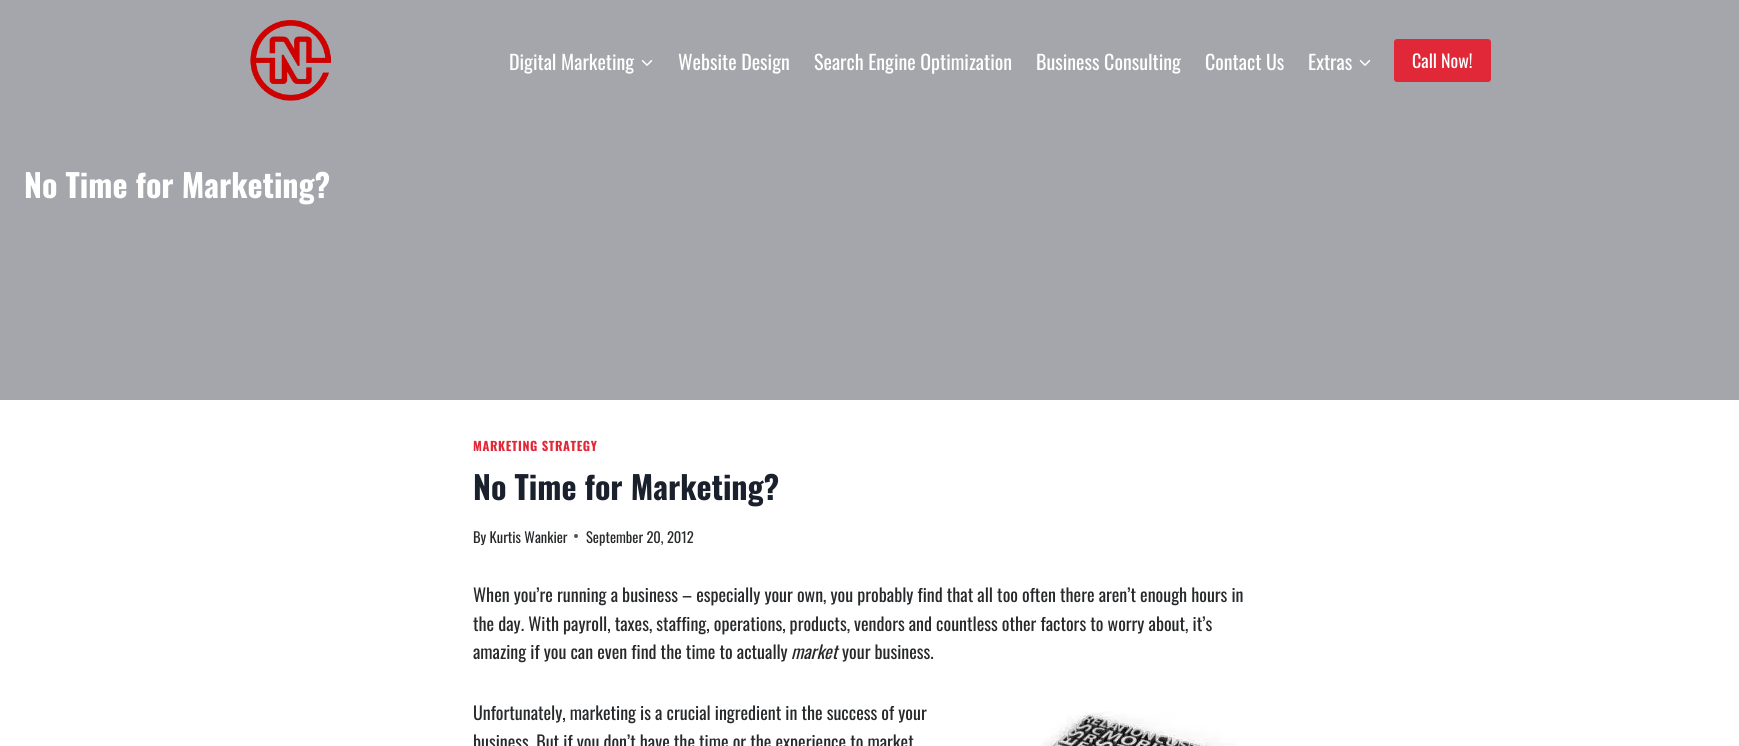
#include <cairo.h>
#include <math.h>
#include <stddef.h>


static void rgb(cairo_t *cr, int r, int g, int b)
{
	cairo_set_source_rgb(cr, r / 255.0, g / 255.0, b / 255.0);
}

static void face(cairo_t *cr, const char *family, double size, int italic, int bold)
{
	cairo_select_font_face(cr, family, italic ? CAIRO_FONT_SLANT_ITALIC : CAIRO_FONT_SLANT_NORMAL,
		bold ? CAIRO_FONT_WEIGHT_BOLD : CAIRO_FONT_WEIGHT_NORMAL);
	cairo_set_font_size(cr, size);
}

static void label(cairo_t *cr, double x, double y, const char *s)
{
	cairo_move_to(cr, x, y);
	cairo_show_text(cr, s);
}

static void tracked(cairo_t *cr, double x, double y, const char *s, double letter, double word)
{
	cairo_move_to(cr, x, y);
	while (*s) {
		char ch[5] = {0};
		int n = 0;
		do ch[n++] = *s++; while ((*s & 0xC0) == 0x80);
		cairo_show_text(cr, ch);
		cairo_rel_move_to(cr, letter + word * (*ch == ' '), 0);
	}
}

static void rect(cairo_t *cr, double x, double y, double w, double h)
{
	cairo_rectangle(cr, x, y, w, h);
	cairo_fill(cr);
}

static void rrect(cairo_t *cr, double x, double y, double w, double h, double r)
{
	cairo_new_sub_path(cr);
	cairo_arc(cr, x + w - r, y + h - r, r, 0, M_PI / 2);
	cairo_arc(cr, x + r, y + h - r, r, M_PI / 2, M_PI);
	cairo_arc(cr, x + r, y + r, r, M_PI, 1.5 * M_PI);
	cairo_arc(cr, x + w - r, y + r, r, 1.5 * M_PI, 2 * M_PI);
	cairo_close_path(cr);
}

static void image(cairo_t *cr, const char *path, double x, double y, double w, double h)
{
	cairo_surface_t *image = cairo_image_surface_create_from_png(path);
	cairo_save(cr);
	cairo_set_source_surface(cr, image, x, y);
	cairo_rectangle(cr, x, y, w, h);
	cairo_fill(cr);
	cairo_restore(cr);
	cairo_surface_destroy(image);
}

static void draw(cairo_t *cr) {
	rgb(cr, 255, 255, 255);
	cairo_paint(cr);
	rgb(cr, 164, 166, 171);
	rect(cr, 0, 0, 1739, 400);
	image(cr, "image0.png", 250, 20, 82, 81);
	face(cr, "Oswald", 20, 0, 0);
	rgb(cr, 255, 255, 255);
	label(cr, 509, 70, "Digital Marketing");
	image(cr, "image1.png", 641, 60, 12, 6);
	label(cr, 678, 70, "Website Design");
	label(cr, 814, 70, "Search Engine Optimization");
	label(cr, 1036, 70, "Business Consulting");
	label(cr, 1205, 70, "Contact Us");
	label(cr, 1308, 70, "Extras");
	image(cr, "image1.png", 1359, 60, 12, 6);
	rgb(cr, 225, 40, 56);
	rrect(cr, 1394, 39, 97, 43, 3);
	cairo_fill(cr);
	face(cr, "Oswald", 18, 0, 0);
	rgb(cr, 255, 255, 255);
	label(cr, 1412, 68, "Call Now!");
	face(cr, "Oswald", 32, 0, 1);
	label(cr, 24, 198, "No Time for Marketing?");
	face(cr, "Oswald", 12.5, 0, 1);
	rgb(cr, 225, 40, 56);
	tracked(cr, 473, 451, "MARKETING STRATEGY", 0.6, 0);
	face(cr, "Oswald", 32, 0, 1);
	rgb(cr, 26, 32, 44);
	label(cr, 473, 500, "No Time for Marketing?");
	face(cr, "Oswald", 14.5, 0, 0);
	rgb(cr, 39, 41, 43);
	label(cr, 473, 543, "By Kurtis Wankier");
	rgb(cr, 82, 84, 85);
	cairo_new_path(cr);
	cairo_arc(cr, 576, 536, 2, 0, 2 * M_PI);
	cairo_fill(cr);
	rgb(cr, 39, 41, 43);
	label(cr, 586, 543, "September 20, 2012");
	face(cr, "Oswald", 18, 0, 0);
	label(cr, 473, 602, "When you’re running a business – especially your own, you probably find that all too often there aren’t enough hours in");
	label(cr, 473, 631, "the day. With payroll, taxes, staffing, operations, products, vendors and countless other factors to worry about, it’s");
	label(cr, 473, 659, "amazing if you can even find the time to actually");
	face(cr, "Oswald", 18, 1, 0);
	label(cr, 791, 659, "market");
	face(cr, "Oswald", 18, 0, 0);
	label(cr, 842, 659, "your business.");
	label(cr, 473, 720, "Unfortunately, marketing is a crucial ingredient in the success of your");
	label(cr, 473, 749, "business. But if you don’t have the time or the experience to market");
	image(cr, "image2.png", 1041, 711, 196, 35);
}

int main(void) {
	cairo_surface_t *surface = cairo_image_surface_create(CAIRO_FORMAT_RGB24, 1739, 746);
	cairo_t *cr = cairo_create(surface);
	cairo_font_options_t *options = cairo_font_options_create();
	cairo_font_options_set_hint_metrics(options, CAIRO_HINT_METRICS_OFF);
	cairo_font_options_set_hint_style(options, CAIRO_HINT_STYLE_NONE);
	cairo_set_font_options(cr, options);
	cairo_set_miter_limit(cr, 4);
	draw(cr);
	cairo_surface_write_to_png(surface, "render.png");
	cairo_font_options_destroy(options);
	cairo_destroy(cr);
	cairo_surface_destroy(surface);
	return 0;
}
